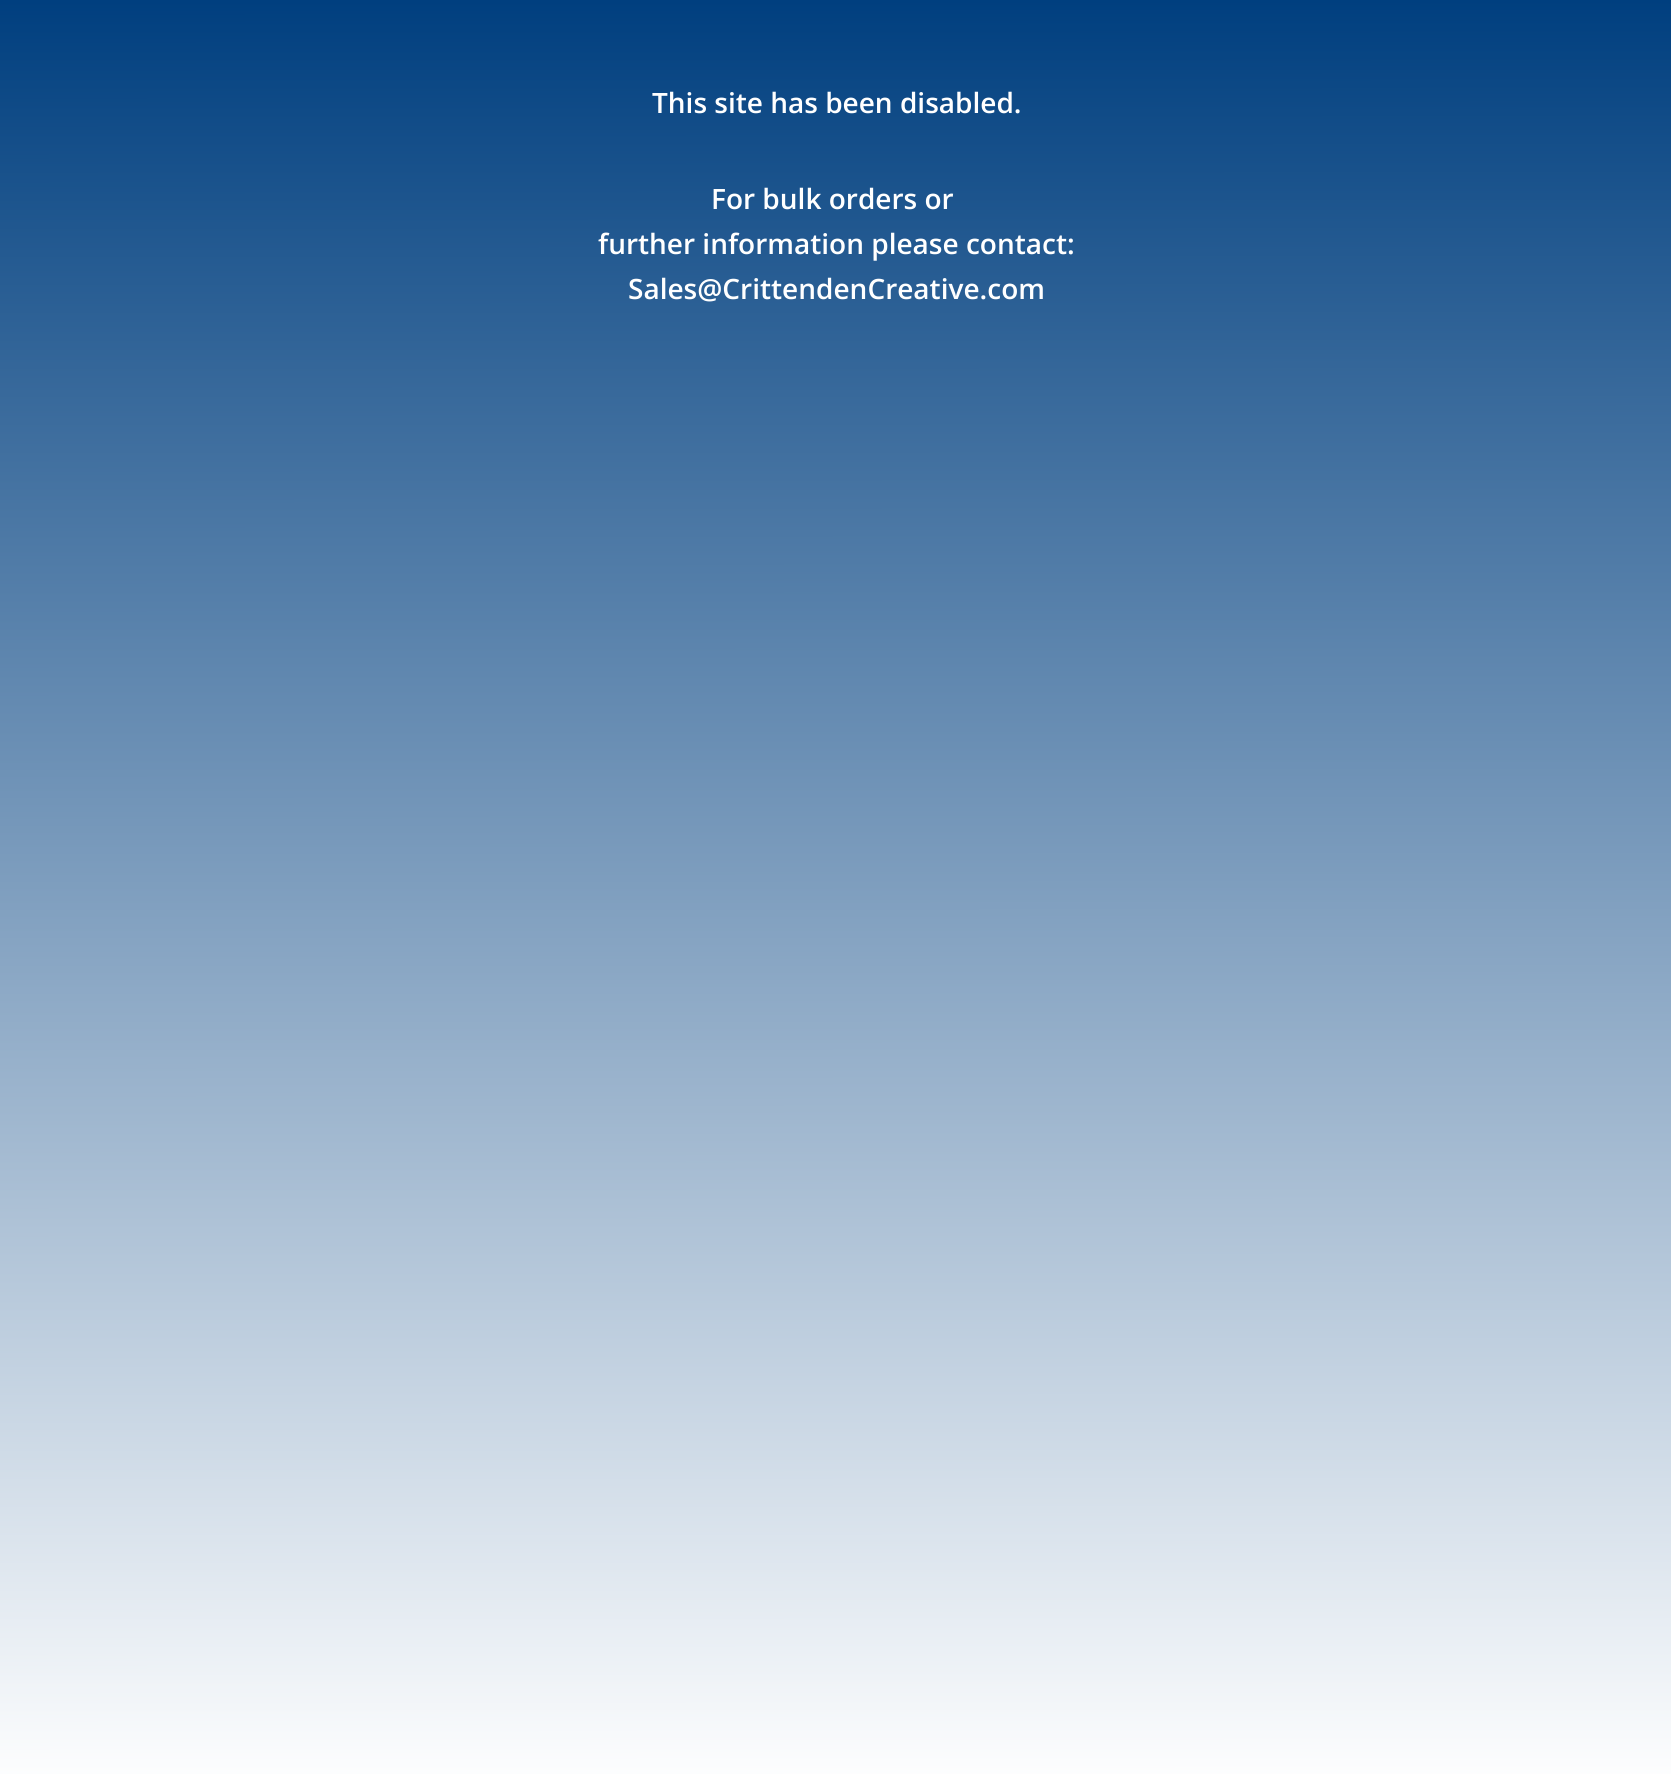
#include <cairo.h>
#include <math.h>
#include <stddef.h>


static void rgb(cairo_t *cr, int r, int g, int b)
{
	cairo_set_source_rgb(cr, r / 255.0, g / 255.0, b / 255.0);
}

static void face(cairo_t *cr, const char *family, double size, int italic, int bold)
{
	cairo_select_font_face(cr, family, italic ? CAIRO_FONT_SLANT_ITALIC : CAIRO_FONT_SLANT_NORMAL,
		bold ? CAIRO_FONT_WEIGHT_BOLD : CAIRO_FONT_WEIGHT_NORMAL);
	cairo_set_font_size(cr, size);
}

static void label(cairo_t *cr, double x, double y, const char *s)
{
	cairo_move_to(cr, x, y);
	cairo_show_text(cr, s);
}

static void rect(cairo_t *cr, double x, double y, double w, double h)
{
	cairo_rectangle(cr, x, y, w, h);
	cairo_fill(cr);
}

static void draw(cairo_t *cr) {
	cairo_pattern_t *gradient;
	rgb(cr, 255, 255, 255);
	cairo_paint(cr);
	gradient = cairo_pattern_create_linear(835, 0, 836, 1791);
	cairo_pattern_add_color_stop_rgba(gradient, 0, 0, 0.247, 0.498, 1);
	cairo_pattern_add_color_stop_rgba(gradient, 1, 1, 1, 1, 1);
	cairo_set_source(cr, gradient);
	cairo_pattern_destroy(gradient);
	rect(cr, 0, 0, 1671, 1774);
	face(cr, "Open Sans SemiBold", 28, 0, 0);
	rgb(cr, 255, 255, 255);
	label(cr, 652, 113, "This site has been disabled.");
	label(cr, 711, 209, "For bulk orders or");
	label(cr, 598, 254, "further information please contact:");
	label(cr, 628, 299, "Sales@CrittendenCreative.com");
}

int main(void) {
	cairo_surface_t *surface = cairo_image_surface_create(CAIRO_FORMAT_RGB24, 1671, 1791);
	cairo_t *cr = cairo_create(surface);
	cairo_font_options_t *options = cairo_font_options_create();
	cairo_font_options_set_hint_metrics(options, CAIRO_HINT_METRICS_OFF);
	cairo_font_options_set_hint_style(options, CAIRO_HINT_STYLE_NONE);
	cairo_set_font_options(cr, options);
	cairo_set_miter_limit(cr, 4);
	draw(cr);
	cairo_surface_write_to_png(surface, "render.png");
	cairo_font_options_destroy(options);
	cairo_destroy(cr);
	cairo_surface_destroy(surface);
	return 0;
}
